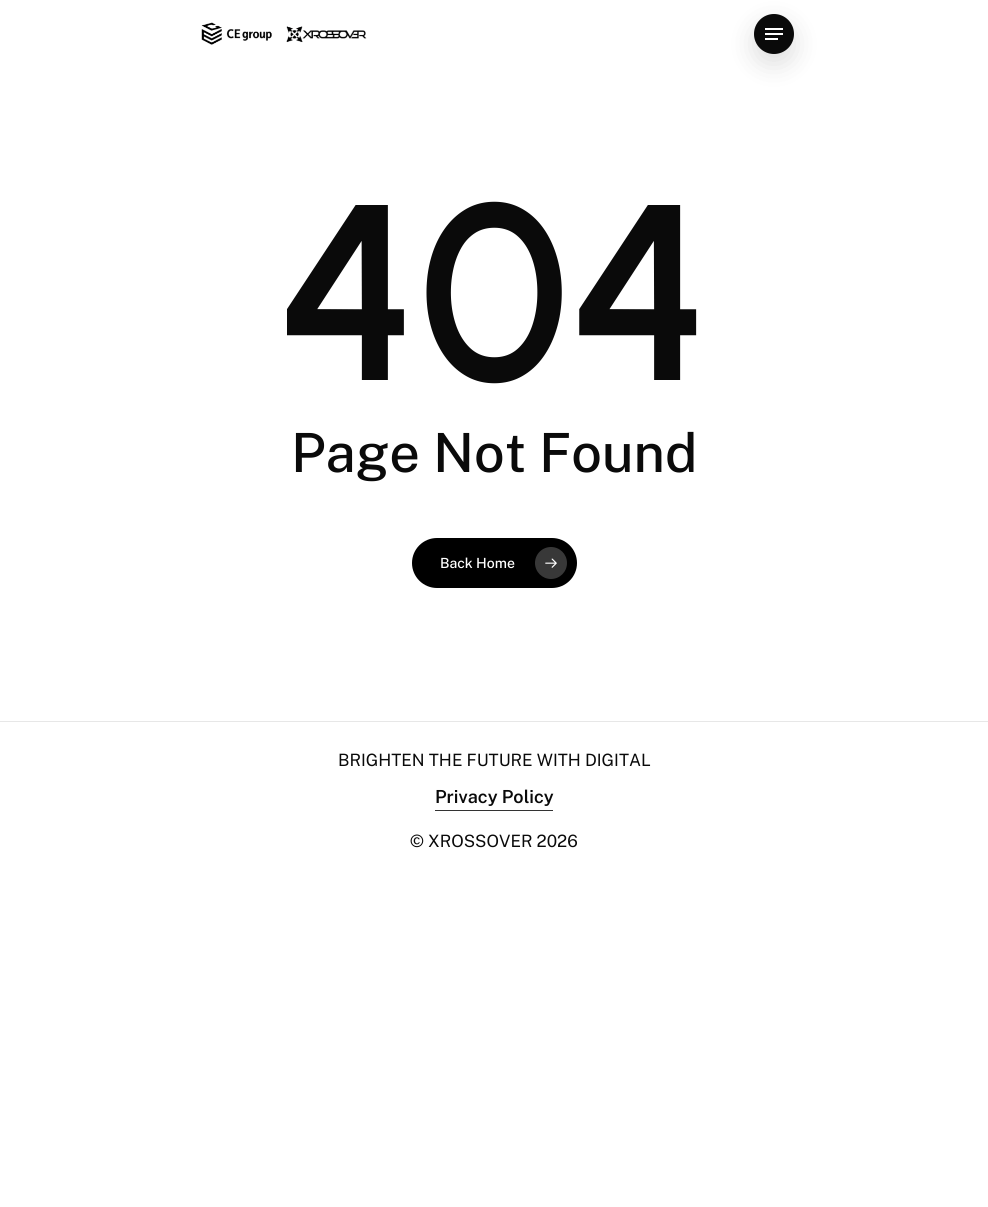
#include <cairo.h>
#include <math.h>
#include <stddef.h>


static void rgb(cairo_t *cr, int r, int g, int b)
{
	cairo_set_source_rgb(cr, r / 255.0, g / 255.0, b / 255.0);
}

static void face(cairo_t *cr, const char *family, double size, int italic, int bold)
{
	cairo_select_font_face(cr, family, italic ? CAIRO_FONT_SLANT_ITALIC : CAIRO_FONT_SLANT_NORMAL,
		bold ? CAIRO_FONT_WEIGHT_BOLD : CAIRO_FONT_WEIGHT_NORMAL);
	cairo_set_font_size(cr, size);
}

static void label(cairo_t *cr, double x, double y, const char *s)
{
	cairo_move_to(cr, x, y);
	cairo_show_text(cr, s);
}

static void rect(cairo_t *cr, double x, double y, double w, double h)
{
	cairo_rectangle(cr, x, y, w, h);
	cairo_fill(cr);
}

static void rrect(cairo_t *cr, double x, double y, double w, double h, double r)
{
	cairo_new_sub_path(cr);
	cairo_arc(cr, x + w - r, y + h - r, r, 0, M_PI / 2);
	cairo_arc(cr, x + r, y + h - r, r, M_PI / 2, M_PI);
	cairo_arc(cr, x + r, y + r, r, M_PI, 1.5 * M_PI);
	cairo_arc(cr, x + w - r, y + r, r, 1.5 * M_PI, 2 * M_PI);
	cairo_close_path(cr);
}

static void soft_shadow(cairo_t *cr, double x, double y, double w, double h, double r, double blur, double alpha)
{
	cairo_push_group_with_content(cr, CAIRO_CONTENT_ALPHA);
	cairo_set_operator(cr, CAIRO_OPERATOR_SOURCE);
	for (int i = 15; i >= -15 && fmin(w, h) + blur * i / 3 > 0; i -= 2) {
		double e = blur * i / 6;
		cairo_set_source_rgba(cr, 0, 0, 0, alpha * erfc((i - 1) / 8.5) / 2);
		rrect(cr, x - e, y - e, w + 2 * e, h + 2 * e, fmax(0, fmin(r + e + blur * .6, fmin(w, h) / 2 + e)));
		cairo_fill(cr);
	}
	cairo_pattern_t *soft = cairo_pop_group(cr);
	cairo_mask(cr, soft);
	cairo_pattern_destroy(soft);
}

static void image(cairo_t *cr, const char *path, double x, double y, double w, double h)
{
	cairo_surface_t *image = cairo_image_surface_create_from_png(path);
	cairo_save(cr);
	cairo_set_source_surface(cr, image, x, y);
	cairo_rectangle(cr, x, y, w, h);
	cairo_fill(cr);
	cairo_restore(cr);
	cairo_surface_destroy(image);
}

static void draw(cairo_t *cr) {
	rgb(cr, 255, 255, 255);
	cairo_paint(cr);
	image(cr, "image0.png", 201, 22, 166, 23);
	rgb(cr, 0, 0, 0);
	soft_shadow(cr, 754, 24, 40, 40, 20, 12.5, 0.13);
	rgb(cr, 10, 10, 10);
	cairo_arc(cr, 774, 34, 20, 0, 2 * M_PI);
	cairo_fill(cr);
	rgb(cr, 255, 255, 255);
	rect(cr, 765, 28, 18, 2);
	rect(cr, 765, 38, 13, 2);
	rect(cr, 765, 33, 18, 2);
	face(cr, "Urbanist SemiBold", 250, 0, 0);
	rgb(cr, 10, 10, 10);
	label(cr, 277, 380, "404");
	face(cr, "Public Sans Medium", 54, 0, 0);
	label(cr, 291, 472, "Page Not Found");
	rgb(cr, 0, 0, 0);
	rrect(cr, 412, 538, 165, 50, 25);
	cairo_fill(cr);
	face(cr, "Public Sans Medium", 14, 0, 0);
	rgb(cr, 255, 255, 255);
	label(cr, 440, 568, "Back Home");
	rgb(cr, 56, 56, 56);
	cairo_new_path(cr);
	cairo_arc(cr, 551, 563, 16, 0, 2 * M_PI);
	cairo_fill(cr);
	image(cr, "image1.png", 545, 558, 12, 10);
	rgb(cr, 231, 231, 231);
	rect(cr, 0, 721, 988, 1);
	face(cr, "Public Sans", 17, 0, 0);
	rgb(cr, 10, 10, 10);
	label(cr, 338, 766, "BRIGHTEN THE FUTURE WITH DIGITAL");
	face(cr, "Public Sans SemiBold", 18, 0, 0);
	label(cr, 435, 803, "Privacy Policy");
	rgb(cr, 51, 51, 51);
	rect(cr, 435, 810, 118, 1);
	face(cr, "Public Sans", 17, 0, 0);
	rgb(cr, 10, 10, 10);
	label(cr, 410, 847, "© XROSSOVER 2026");
}

int main(void) {
	cairo_surface_t *surface = cairo_image_surface_create(CAIRO_FORMAT_RGB24, 988, 1207);
	cairo_t *cr = cairo_create(surface);
	cairo_font_options_t *options = cairo_font_options_create();
	cairo_font_options_set_hint_metrics(options, CAIRO_HINT_METRICS_OFF);
	cairo_font_options_set_hint_style(options, CAIRO_HINT_STYLE_NONE);
	cairo_set_font_options(cr, options);
	cairo_set_miter_limit(cr, 4);
	draw(cr);
	cairo_surface_write_to_png(surface, "render.png");
	cairo_font_options_destroy(options);
	cairo_destroy(cr);
	cairo_surface_destroy(surface);
	return 0;
}
